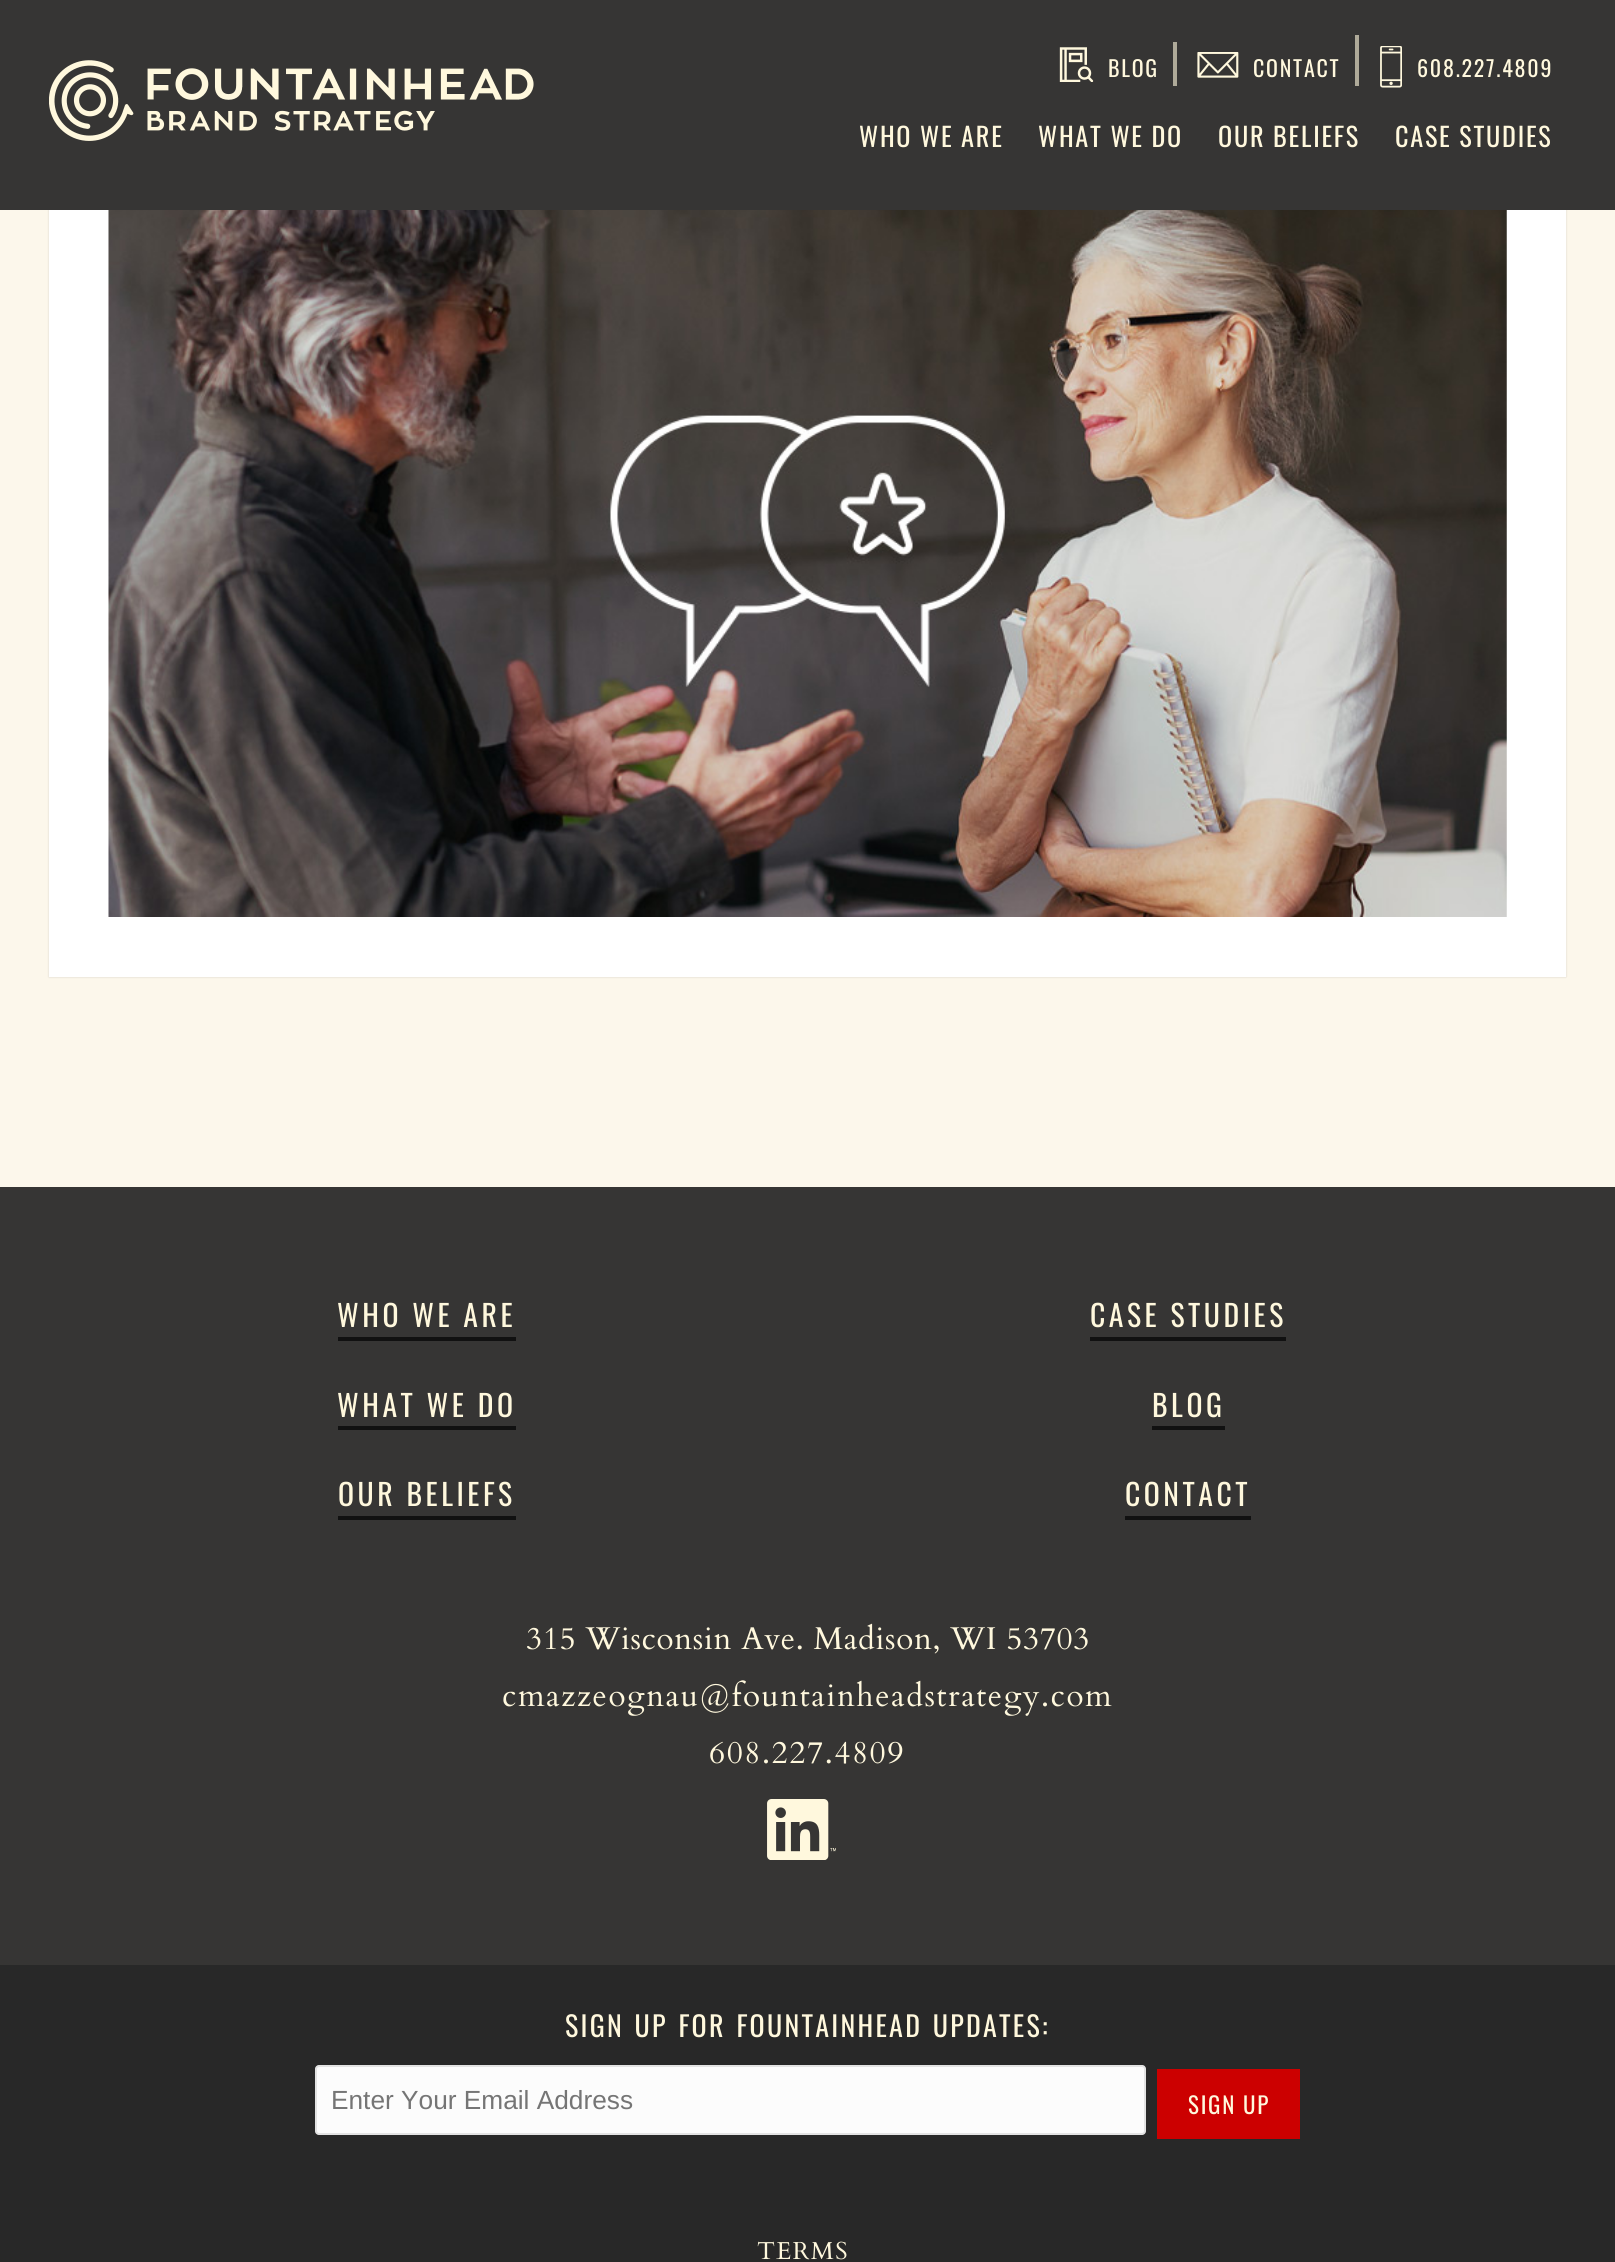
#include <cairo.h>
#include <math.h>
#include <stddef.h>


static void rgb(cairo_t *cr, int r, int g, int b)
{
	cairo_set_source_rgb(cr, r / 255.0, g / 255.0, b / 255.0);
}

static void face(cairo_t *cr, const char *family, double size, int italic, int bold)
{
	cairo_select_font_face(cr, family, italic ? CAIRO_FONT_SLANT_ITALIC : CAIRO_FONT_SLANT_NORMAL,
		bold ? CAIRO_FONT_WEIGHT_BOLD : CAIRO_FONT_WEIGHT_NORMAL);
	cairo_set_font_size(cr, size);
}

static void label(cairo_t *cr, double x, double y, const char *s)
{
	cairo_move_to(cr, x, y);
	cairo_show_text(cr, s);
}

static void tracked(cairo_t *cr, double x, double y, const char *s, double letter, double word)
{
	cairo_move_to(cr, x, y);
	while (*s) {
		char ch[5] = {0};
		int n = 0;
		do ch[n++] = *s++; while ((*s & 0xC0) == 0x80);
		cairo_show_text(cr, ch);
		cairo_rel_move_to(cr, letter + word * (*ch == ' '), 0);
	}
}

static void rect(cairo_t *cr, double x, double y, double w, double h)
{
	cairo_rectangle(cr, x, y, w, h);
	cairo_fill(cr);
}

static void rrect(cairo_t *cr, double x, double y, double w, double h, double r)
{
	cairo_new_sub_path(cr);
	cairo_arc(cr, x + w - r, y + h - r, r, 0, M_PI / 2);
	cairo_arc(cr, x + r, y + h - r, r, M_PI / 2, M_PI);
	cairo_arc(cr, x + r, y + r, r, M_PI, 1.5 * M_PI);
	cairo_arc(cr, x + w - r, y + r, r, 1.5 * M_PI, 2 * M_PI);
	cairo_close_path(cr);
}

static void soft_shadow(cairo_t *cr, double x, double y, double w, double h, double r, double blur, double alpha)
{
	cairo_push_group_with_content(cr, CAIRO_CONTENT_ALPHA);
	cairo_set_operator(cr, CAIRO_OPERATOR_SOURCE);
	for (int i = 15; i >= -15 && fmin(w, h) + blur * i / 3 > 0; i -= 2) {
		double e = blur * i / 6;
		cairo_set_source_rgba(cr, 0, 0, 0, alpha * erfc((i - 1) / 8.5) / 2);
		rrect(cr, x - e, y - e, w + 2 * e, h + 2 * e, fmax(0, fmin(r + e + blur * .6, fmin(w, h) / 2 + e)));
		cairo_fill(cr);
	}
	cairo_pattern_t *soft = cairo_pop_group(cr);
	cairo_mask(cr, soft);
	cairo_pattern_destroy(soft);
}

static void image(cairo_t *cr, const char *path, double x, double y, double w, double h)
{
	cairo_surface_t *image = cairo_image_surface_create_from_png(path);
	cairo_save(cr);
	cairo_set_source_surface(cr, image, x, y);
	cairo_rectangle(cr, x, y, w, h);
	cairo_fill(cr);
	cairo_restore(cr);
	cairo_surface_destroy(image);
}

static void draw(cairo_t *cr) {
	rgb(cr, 252, 247, 235);
	cairo_paint(cr);
	rgb(cr, 0, 0, 0);
	soft_shadow(cr, 49, 123, 1517, 854, 0, 1, 0.15);
	rgb(cr, 54, 53, 52);
	rect(cr, 0, 0, 1615, 210);
	image(cr, "image0.png", 49, 60, 485, 81);
	rgb(cr, 175, 170, 153);
	rect(cr, 1173, 42, 4, 44);
	image(cr, "image1.png", 1059, 47, 35, 35);
	face(cr, "Oswald", 22, 0, 0);
	rgb(cr, 255, 248, 221);
	tracked(cr, 1108, 77, "BLOG", 1.75, 0);
	rgb(cr, 175, 170, 153);
	rect(cr, 1355, 35, 4, 51);
	image(cr, "image2.png", 1197, 52, 42, 26);
	rgb(cr, 255, 248, 221);
	tracked(cr, 1253, 77, "CONTACT", 1.75, 0);
	image(cr, "image3.png", 1380, 46, 22, 42);
	tracked(cr, 1417, 77, "608.227.4809", 1.75, 0);
	face(cr, "Oswald", 26.25, 0, 0);
	tracked(cr, 859, 147, "WHO WE ARE", 1.75, 0);
	tracked(cr, 1038, 147, "WHAT WE DO", 1.75, 0);
	tracked(cr, 1218, 147, "OUR BELIEFS", 1.75, 0);
	tracked(cr, 1395, 147, "CASE STUDIES", 1.75, 0);
	rgb(cr, 255, 255, 255);
	rect(cr, 49, 210, 1517, 767);
	image(cr, "image4.png", 108, 210, 1399, 707);
	rgb(cr, 54, 53, 52);
	rect(cr, 0, 1187, 1615, 778);
	face(cr, "Oswald", 29.75, 0, 0);
	rgb(cr, 255, 248, 221);
	tracked(cr, 337, 1327, "WHO WE ARE", 3.5, 0);
	rgb(cr, 17, 17, 17);
	rect(cr, 338, 1337, 178, 4);
	rgb(cr, 255, 248, 221);
	tracked(cr, 1090, 1327, "CASE STUDIES", 3.5, 0);
	rgb(cr, 17, 17, 17);
	rect(cr, 1090, 1337, 196, 4);
	rgb(cr, 255, 248, 221);
	tracked(cr, 337, 1417, "WHAT WE DO", 3.5, 0);
	rgb(cr, 17, 17, 17);
	rect(cr, 338, 1426, 178, 4);
	rgb(cr, 255, 248, 221);
	tracked(cr, 1152, 1417, "BLOG", 3.5, 0);
	rgb(cr, 17, 17, 17);
	rect(cr, 1152, 1426, 73, 4);
	rgb(cr, 255, 248, 221);
	tracked(cr, 338, 1506, "OUR BELIEFS", 3.5, 0);
	rgb(cr, 17, 17, 17);
	rect(cr, 338, 1516, 178, 4);
	rgb(cr, 255, 248, 221);
	tracked(cr, 1125, 1506, "CONTACT", 3.5, 0);
	rgb(cr, 17, 17, 17);
	rect(cr, 1125, 1516, 126, 4);
	face(cr, "Cardo", 31.5, 0, 0);
	rgb(cr, 255, 248, 221);
	tracked(cr, 526, 1649, "315 Wisconsin Ave. Madison, WI 53703", 0.65, 0);
	tracked(cr, 502, 1706, "cmazzeognau@fountainheadstrategy.com", 1.55, 0);
	tracked(cr, 709, 1763, "608.227.4809", 1.55, 0);
	image(cr, "image5.png", 767, 1799, 69, 61);
	rgb(cr, 40, 40, 40);
	rect(cr, 0, 1965, 1615, 297);
	face(cr, "Oswald", 28, 0, 0);
	rgb(cr, 255, 248, 221);
	tracked(cr, 565, 2037, "SIGN UP FOR FOUNTAINHEAD UPDATES:", 2.25, 2);
	rgb(cr, 252, 252, 252);
	rrect(cr, 315, 2065, 831, 70, 4);
	cairo_fill(cr);
	rrect(cr, 316, 2066, 829, 68, 3);
	cairo_set_source_rgba(cr, 0, 0, 0, 0.1);
	cairo_stroke(cr);
	face(cr, "Liberation Sans", 26.25, 0, 0);
	rgb(cr, 117, 117, 117);
	label(cr, 331, 2109, "Enter Your Email Address");
	rgb(cr, 204, 0, 0);
	rect(cr, 1157, 2069, 143, 70);
	face(cr, "Oswald", 23, 0, 0);
	rgb(cr, 255, 248, 221);
	tracked(cr, 1188, 2114, "SIGN UP", 1.75, 0);
	face(cr, "Cardo", 24.5, 0, 0);
	tracked(cr, 757, 2259, "TERMS", 1.25, 0);
}

int main(void) {
	cairo_surface_t *surface = cairo_image_surface_create(CAIRO_FORMAT_RGB24, 1615, 2262);
	cairo_t *cr = cairo_create(surface);
	cairo_font_options_t *options = cairo_font_options_create();
	cairo_font_options_set_hint_metrics(options, CAIRO_HINT_METRICS_OFF);
	cairo_font_options_set_hint_style(options, CAIRO_HINT_STYLE_NONE);
	cairo_set_font_options(cr, options);
	cairo_set_miter_limit(cr, 4);
	draw(cr);
	cairo_surface_write_to_png(surface, "render.png");
	cairo_font_options_destroy(options);
	cairo_destroy(cr);
	cairo_surface_destroy(surface);
	return 0;
}
